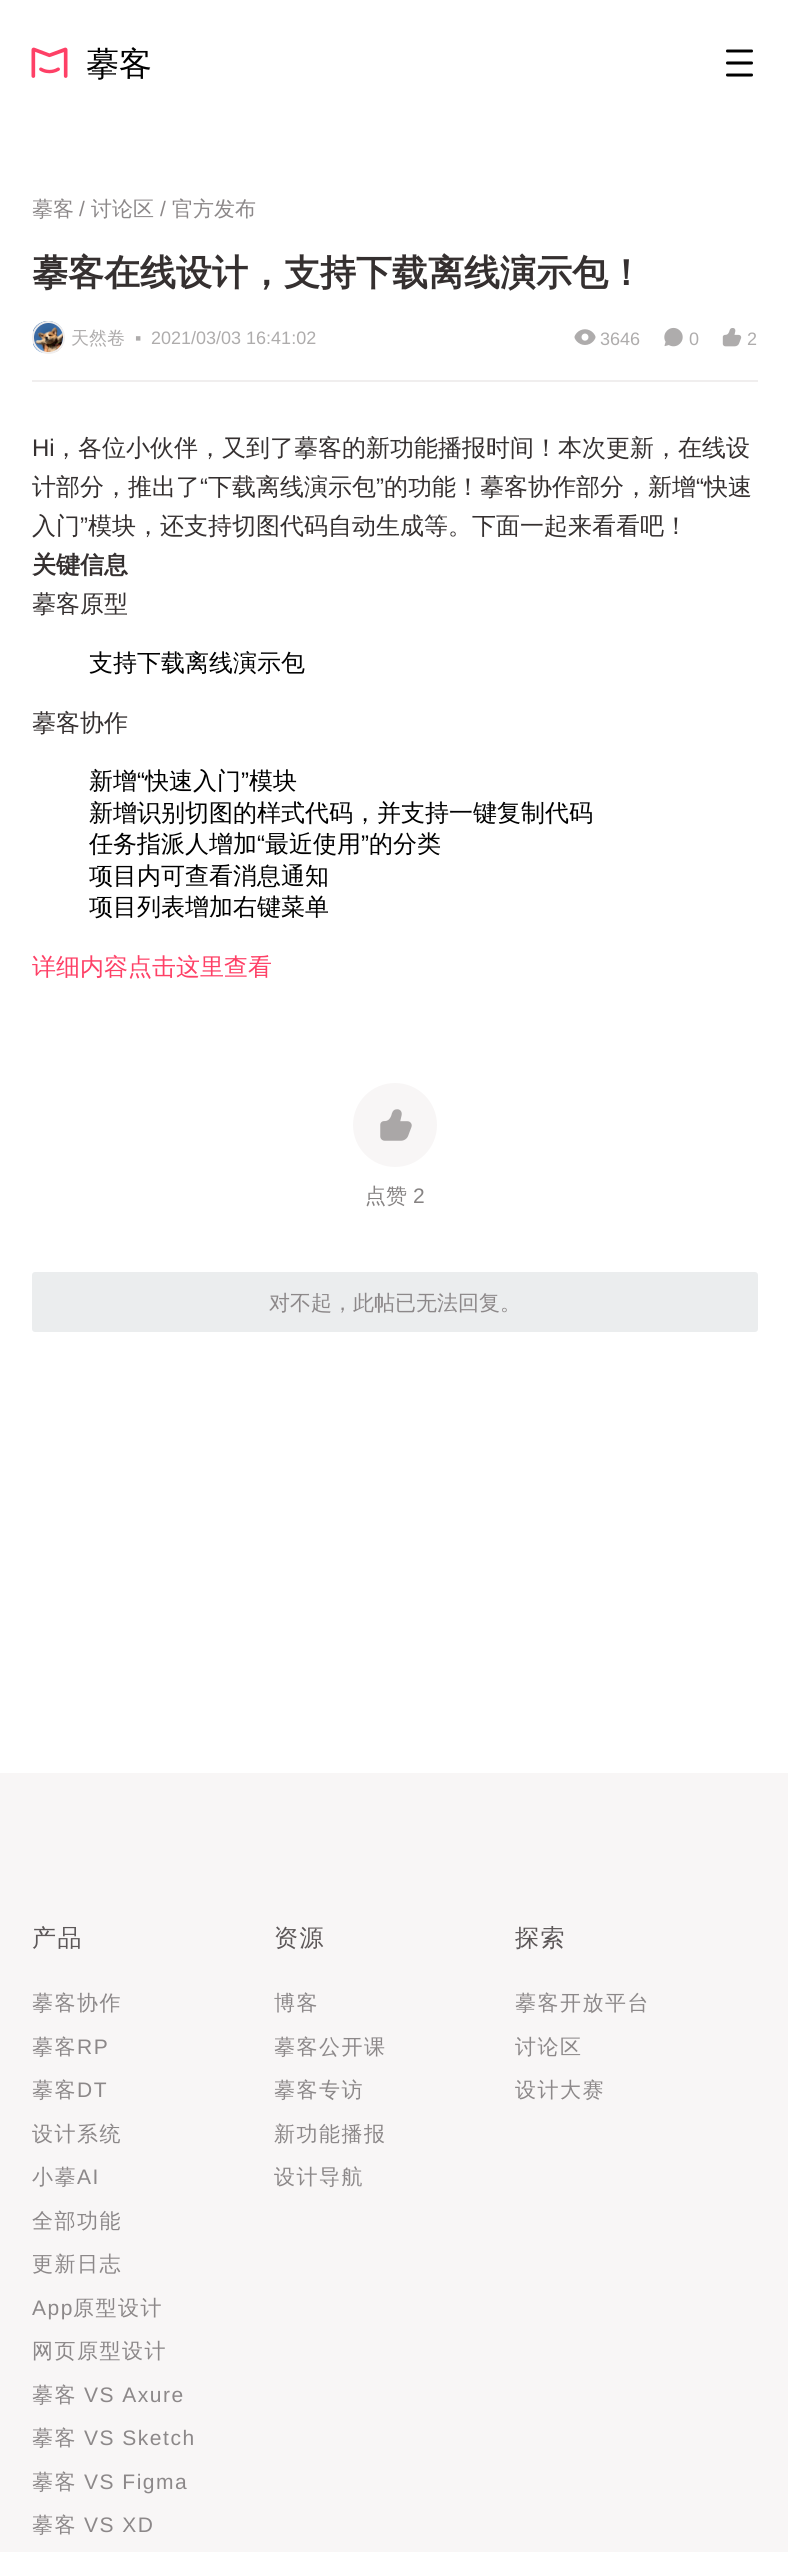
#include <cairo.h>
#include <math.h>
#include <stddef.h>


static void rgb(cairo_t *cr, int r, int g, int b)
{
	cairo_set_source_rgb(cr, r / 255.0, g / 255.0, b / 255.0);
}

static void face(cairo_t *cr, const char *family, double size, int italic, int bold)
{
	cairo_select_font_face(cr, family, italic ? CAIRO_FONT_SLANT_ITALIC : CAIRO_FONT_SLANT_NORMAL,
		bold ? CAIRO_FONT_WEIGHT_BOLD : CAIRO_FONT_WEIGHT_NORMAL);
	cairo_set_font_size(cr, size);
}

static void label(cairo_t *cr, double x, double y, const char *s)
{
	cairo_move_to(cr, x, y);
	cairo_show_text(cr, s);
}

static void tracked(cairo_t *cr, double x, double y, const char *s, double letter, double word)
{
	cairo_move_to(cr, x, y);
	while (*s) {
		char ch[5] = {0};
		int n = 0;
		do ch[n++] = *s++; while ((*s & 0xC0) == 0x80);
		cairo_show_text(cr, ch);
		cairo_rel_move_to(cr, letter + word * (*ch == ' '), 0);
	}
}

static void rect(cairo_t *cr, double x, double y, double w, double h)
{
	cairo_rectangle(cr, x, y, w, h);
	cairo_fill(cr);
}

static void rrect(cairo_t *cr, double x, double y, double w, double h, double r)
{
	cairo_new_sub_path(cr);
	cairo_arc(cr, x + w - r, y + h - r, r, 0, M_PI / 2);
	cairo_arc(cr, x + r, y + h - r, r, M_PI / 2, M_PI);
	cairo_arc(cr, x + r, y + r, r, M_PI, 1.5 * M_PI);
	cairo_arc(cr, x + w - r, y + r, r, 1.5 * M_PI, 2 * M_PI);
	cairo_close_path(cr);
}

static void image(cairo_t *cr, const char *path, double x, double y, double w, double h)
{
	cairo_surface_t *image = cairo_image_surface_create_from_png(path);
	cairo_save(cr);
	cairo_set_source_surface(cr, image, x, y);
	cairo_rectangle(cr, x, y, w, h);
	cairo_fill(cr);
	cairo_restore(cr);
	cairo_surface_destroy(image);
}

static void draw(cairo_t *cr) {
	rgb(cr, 255, 255, 255);
	cairo_paint(cr);
	image(cr, "image0.png", 31, 47, 37, 31);
	face(cr, "WenQuanYi Zen Hei Medium", 33, 0, 0);
	rgb(cr, 0, 0, 0);
	label(cr, 86, 75, "摹客");
	image(cr, "image1.png", 726, 49, 27, 28);
	face(cr, "WenQuanYi Zen Hei Medium", 21, 0, 0);
	rgb(cr, 140, 136, 137);
	label(cr, 32, 216, "摹客");
	face(cr, "Liberation Sans", 21, 0, 0);
	label(cr, 79, 216, "/");
	face(cr, "WenQuanYi Zen Hei Medium", 21, 0, 0);
	label(cr, 91, 216, "讨论区");
	face(cr, "Liberation Sans", 21, 0, 0);
	label(cr, 160, 216, "/");
	face(cr, "WenQuanYi Zen Hei Medium", 21, 0, 0);
	label(cr, 172, 216, "官方发布");
	face(cr, "WenQuanYi Zen Hei", 36, 0, 1);
	rgb(cr, 53, 48, 48);
	label(cr, 32, 285, "摹客在线设计，支持下载离线演示包！");
	rgb(cr, 240, 238, 238);
	rect(cr, 32, 380, 726, 2);
	image(cr, "image2.png", 33, 321, 30, 32);
	cairo_arc(cr, 48.5, 337.5, 15.5, 0, 2 * M_PI);
	cairo_stroke(cr);
	face(cr, "WenQuanYi Zen Hei Medium", 18, 0, 0);
	rgb(cr, 174, 172, 172);
	label(cr, 71, 344, "天然卷");
	face(cr, "Liberation Sans", 18, 0, 0);
	label(cr, 135, 344, "▪");
	label(cr, 151, 344, "2021/03/03 16:41:02");
	image(cr, "image3.png", 574, 329, 22, 16);
	label(cr, 600, 345, "3646");
	image(cr, "image4.png", 664, 327, 19, 20);
	label(cr, 689, 345, "0");
	image(cr, "image5.png", 722, 328, 20, 19);
	label(cr, 747, 345, "2");
	face(cr, "Liberation Sans", 24, 0, 0);
	rgb(cr, 53, 48, 48);
	label(cr, 32, 456, "Hi");
	face(cr, "WenQuanYi Zen Hei Medium", 24, 0, 0);
	label(cr, 54, 456, "，各位小伙伴，又到了摹客的新功能播报时间！本次更新，在线设");
	label(cr, 32, 495, "计部分，推出了");
	face(cr, "Liberation Sans", 24, 0, 0);
	label(cr, 200, 495, "“");
	face(cr, "WenQuanYi Zen Hei Medium", 24, 0, 0);
	label(cr, 208, 495, "下载离线演示包");
	face(cr, "Liberation Sans", 24, 0, 0);
	label(cr, 376, 495, "”");
	face(cr, "WenQuanYi Zen Hei Medium", 24, 0, 0);
	label(cr, 384, 495, "的功能！摹客协作部分，新增");
	face(cr, "Liberation Sans", 24, 0, 0);
	label(cr, 696, 495, "“");
	face(cr, "WenQuanYi Zen Hei Medium", 24, 0, 0);
	label(cr, 704, 495, "快速");
	label(cr, 32, 534, "入门");
	face(cr, "Liberation Sans", 24, 0, 0);
	label(cr, 80, 534, "”");
	face(cr, "WenQuanYi Zen Hei Medium", 24, 0, 0);
	label(cr, 88, 534, "模块，还支持切图代码自动生成等。下面一起来看看吧！");
	face(cr, "WenQuanYi Zen Hei", 24, 0, 1);
	label(cr, 32, 573, "关键信息");
	face(cr, "WenQuanYi Zen Hei Medium", 24, 0, 0);
	label(cr, 32, 612, "摹客原型");
	rgb(cr, 0, 0, 0);
	label(cr, 89, 671, "支持下载离线演示包");
	rgb(cr, 53, 48, 48);
	label(cr, 32, 731, "摹客协作");
	rgb(cr, 0, 0, 0);
	label(cr, 89, 789, "新增");
	face(cr, "Liberation Sans", 24, 0, 0);
	label(cr, 137, 789, "“");
	face(cr, "WenQuanYi Zen Hei Medium", 24, 0, 0);
	label(cr, 145, 789, "快速入门");
	face(cr, "Liberation Sans", 24, 0, 0);
	label(cr, 241, 789, "”");
	face(cr, "WenQuanYi Zen Hei Medium", 24, 0, 0);
	label(cr, 249, 789, "模块");
	label(cr, 89, 821, "新增识别切图的样式代码，并支持一键复制代码");
	label(cr, 89, 852, "任务指派人增加");
	face(cr, "Liberation Sans", 24, 0, 0);
	label(cr, 257, 852, "“");
	face(cr, "WenQuanYi Zen Hei Medium", 24, 0, 0);
	label(cr, 265, 852, "最近使用");
	face(cr, "Liberation Sans", 24, 0, 0);
	label(cr, 361, 852, "”");
	face(cr, "WenQuanYi Zen Hei Medium", 24, 0, 0);
	label(cr, 369, 852, "的分类");
	label(cr, 89, 884, "项目内可查看消息通知");
	label(cr, 89, 915, "项目列表增加右键菜单");
	rgb(cr, 254, 64, 102);
	label(cr, 32, 975, "详细内容点击这里查看");
	rgb(cr, 248, 246, 246);
	cairo_new_path(cr);
	cairo_arc(cr, 395, 1125, 42, 0, 2 * M_PI);
	cairo_fill(cr);
	image(cr, "image6.png", 380, 1109, 32, 32);
	face(cr, "WenQuanYi Zen Hei Medium", 21, 0, 0);
	rgb(cr, 134, 131, 131);
	label(cr, 365, 1203, "点赞");
	face(cr, "Liberation Sans", 21, 0, 0);
	label(cr, 413, 1203, "2");
	rgb(cr, 235, 237, 238);
	rrect(cr, 32, 1272, 726, 60, 3);
	cairo_fill(cr);
	face(cr, "WenQuanYi Zen Hei Medium", 21, 0, 0);
	rgb(cr, 140, 136, 137);
	label(cr, 269, 1310, "对不起，此帖已无法回复。");
	rgb(cr, 248, 246, 246);
	rect(cr, 0, 1773, 788, 779);
	face(cr, "WenQuanYi Zen Hei Medium", 24, 0, 0);
	rgb(cr, 92, 87, 88);
	tracked(cr, 32, 1946, "产品", 1.5, 0);
	face(cr, "WenQuanYi Zen Hei Medium", 21, 0, 0);
	rgb(cr, 140, 136, 137);
	tracked(cr, 32, 2010, "摹客协作", 1.5, 0);
	tracked(cr, 32, 2054, "摹客", 1.5, 0);
	face(cr, "Liberation Sans", 21, 0, 0);
	tracked(cr, 77, 2054, "RP", 1.5, 0);
	face(cr, "WenQuanYi Zen Hei Medium", 21, 0, 0);
	tracked(cr, 32, 2097, "摹客", 1.5, 0);
	face(cr, "Liberation Sans", 21, 0, 0);
	tracked(cr, 77, 2097, "DT", 1.5, 0);
	face(cr, "WenQuanYi Zen Hei Medium", 21, 0, 0);
	tracked(cr, 32, 2141, "设计系统", 1.5, 0);
	tracked(cr, 32, 2184, "小摹", 1.5, 0);
	face(cr, "Liberation Sans", 21, 0, 0);
	tracked(cr, 77, 2184, "AI", 1.5, 0);
	face(cr, "WenQuanYi Zen Hei Medium", 21, 0, 0);
	tracked(cr, 32, 2228, "全部功能", 1.5, 0);
	tracked(cr, 32, 2271, "更新日志", 1.5, 0);
	face(cr, "Liberation Sans", 21, 0, 0);
	tracked(cr, 32, 2315, "App", 1.5, 0);
	face(cr, "WenQuanYi Zen Hei Medium", 21, 0, 0);
	tracked(cr, 73, 2315, "原型设计", 1.5, 0);
	tracked(cr, 32, 2358, "网页原型设计", 1.5, 0);
	tracked(cr, 32, 2402, "摹客", 1.5, 0);
	face(cr, "Liberation Sans", 21, 0, 0);
	tracked(cr, 84, 2402, "VS Axure", 1.5, 0);
	face(cr, "WenQuanYi Zen Hei Medium", 21, 0, 0);
	tracked(cr, 32, 2445, "摹客", 1.5, 0);
	face(cr, "Liberation Sans", 21, 0, 0);
	tracked(cr, 84, 2445, "VS Sketch", 1.5, 0);
	face(cr, "WenQuanYi Zen Hei Medium", 21, 0, 0);
	tracked(cr, 32, 2489, "摹客", 1.5, 0);
	face(cr, "Liberation Sans", 21, 0, 0);
	tracked(cr, 84, 2489, "VS Figma", 1.5, 0);
	face(cr, "WenQuanYi Zen Hei Medium", 21, 0, 0);
	tracked(cr, 32, 2532, "摹客", 1.5, 0);
	face(cr, "Liberation Sans", 21, 0, 0);
	tracked(cr, 84, 2532, "VS XD", 1.5, 0);
	face(cr, "WenQuanYi Zen Hei Medium", 24, 0, 0);
	rgb(cr, 92, 87, 88);
	tracked(cr, 274, 1946, "资源", 1.5, 0);
	face(cr, "WenQuanYi Zen Hei Medium", 21, 0, 0);
	rgb(cr, 140, 136, 137);
	tracked(cr, 274, 2010, "博客", 1.5, 0);
	tracked(cr, 274, 2054, "摹客公开课", 1.5, 0);
	tracked(cr, 274, 2097, "摹客专访", 1.5, 0);
	tracked(cr, 274, 2141, "新功能播报", 1.5, 0);
	tracked(cr, 274, 2184, "设计导航", 1.5, 0);
	face(cr, "WenQuanYi Zen Hei Medium", 24, 0, 0);
	rgb(cr, 92, 87, 88);
	tracked(cr, 515, 1946, "探索", 1.5, 0);
	face(cr, "WenQuanYi Zen Hei Medium", 21, 0, 0);
	rgb(cr, 140, 136, 137);
	tracked(cr, 515, 2010, "摹客开放平台", 1.5, 0);
	tracked(cr, 515, 2054, "讨论区", 1.5, 0);
	tracked(cr, 515, 2097, "设计大赛", 1.5, 0);
}

int main(void) {
	cairo_surface_t *surface = cairo_image_surface_create(CAIRO_FORMAT_RGB24, 788, 2552);
	cairo_t *cr = cairo_create(surface);
	cairo_font_options_t *options = cairo_font_options_create();
	cairo_font_options_set_hint_metrics(options, CAIRO_HINT_METRICS_OFF);
	cairo_font_options_set_hint_style(options, CAIRO_HINT_STYLE_NONE);
	cairo_set_font_options(cr, options);
	cairo_set_miter_limit(cr, 4);
	draw(cr);
	cairo_surface_write_to_png(surface, "render.png");
	cairo_font_options_destroy(options);
	cairo_destroy(cr);
	cairo_surface_destroy(surface);
	return 0;
}
